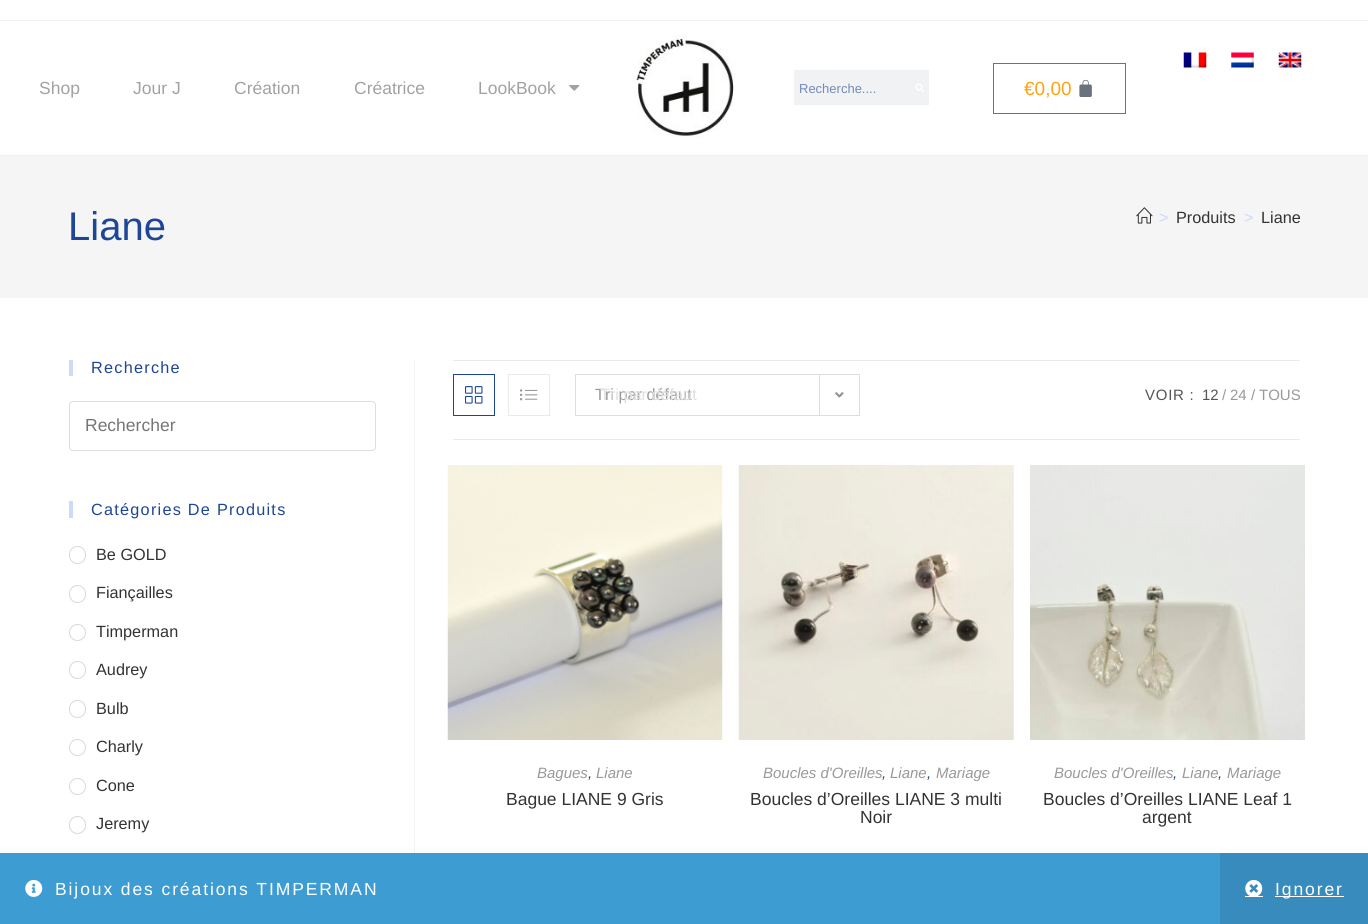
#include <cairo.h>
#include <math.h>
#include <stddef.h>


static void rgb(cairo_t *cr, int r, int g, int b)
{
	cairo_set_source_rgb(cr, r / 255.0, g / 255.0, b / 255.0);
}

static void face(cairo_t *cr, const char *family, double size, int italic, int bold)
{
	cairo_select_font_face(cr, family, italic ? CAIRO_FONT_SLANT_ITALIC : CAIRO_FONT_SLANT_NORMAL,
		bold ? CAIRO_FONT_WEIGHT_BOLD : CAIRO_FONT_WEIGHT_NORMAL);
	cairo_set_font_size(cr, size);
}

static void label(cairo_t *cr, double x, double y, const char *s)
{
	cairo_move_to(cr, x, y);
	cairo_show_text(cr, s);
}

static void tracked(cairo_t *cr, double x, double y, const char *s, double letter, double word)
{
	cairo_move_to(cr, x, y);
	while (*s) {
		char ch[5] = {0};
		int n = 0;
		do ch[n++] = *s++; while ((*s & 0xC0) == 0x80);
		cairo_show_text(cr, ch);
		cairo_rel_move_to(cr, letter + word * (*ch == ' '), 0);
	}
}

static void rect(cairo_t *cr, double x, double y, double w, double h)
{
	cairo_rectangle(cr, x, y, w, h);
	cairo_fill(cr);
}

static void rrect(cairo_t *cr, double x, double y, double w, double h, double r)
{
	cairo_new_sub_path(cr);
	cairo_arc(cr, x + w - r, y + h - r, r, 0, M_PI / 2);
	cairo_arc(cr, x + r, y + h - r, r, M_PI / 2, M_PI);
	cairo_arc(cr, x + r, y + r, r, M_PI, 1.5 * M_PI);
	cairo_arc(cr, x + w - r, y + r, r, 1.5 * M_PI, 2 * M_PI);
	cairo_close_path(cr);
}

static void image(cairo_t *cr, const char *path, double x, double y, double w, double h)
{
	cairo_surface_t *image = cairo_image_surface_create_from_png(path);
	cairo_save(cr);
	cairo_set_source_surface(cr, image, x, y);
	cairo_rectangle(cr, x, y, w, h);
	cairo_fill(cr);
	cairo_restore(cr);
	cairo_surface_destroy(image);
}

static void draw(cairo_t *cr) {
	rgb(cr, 255, 255, 255);
	cairo_paint(cr);
	rgb(cr, 241, 241, 241);
	rect(cr, 0, 20, 1368, 1);
	rect(cr, 0, 155, 1368, 1);
	image(cr, "image0.png", 631, 35, 105, 103);
	image(cr, "image1.png", 1183, 52, 24, 16);
	image(cr, "image2.png", 1231, 52, 23, 16);
	image(cr, "image3.png", 1278, 52, 24, 16);
	face(cr, "Liberation Sans", 17.5, 0, 0);
	rgb(cr, 162, 162, 162);
	label(cr, 39, 94, "Shop");
	label(cr, 133, 94, "Jour J");
	label(cr, 234, 94, "Création");
	label(cr, 354, 94, "Créatrice");
	label(cr, 478, 94, "LookBook");
	image(cr, "image4.png", 569, 85, 11, 6);
	rgb(cr, 241, 242, 243);
	rect(cr, 794, 70, 135, 35);
	face(cr, "Liberation Sans", 13, 0, 0);
	rgb(cr, 114, 139, 187);
	label(cr, 799, 93, "Recherche....");
	image(cr, "image5.png", 915, 83, 9, 9);
	cairo_rectangle(cr, 993.5, 63.5, 132, 50);
	rgb(cr, 105, 114, 125);
	cairo_set_line_width(cr, 1);
	cairo_stroke(cr);
	face(cr, "Liberation Sans", 19, 0, 0);
	rgb(cr, 252, 163, 17);
	label(cr, 1024, 95, "€0,00");
	image(cr, "image6.png", 1079, 79, 13, 18);
	rgb(cr, 245, 245, 245);
	rect(cr, 0, 156, 1368, 142);
	face(cr, "Liberation Sans", 40, 0, 0);
	rgb(cr, 30, 70, 150);
	label(cr, 68, 240, "Liane");
	image(cr, "image7.png", 1136, 207, 17, 17);
	face(cr, "Liberation Sans", 16.25, 0, 0);
	rgb(cr, 203, 218, 246);
	label(cr, 1159, 223, ">");
	rgb(cr, 51, 51, 51);
	label(cr, 1176, 223, "Produits");
	rgb(cr, 203, 218, 246);
	label(cr, 1244, 223, ">");
	rgb(cr, 51, 51, 51);
	label(cr, 1261, 223, "Liane");
	rgb(cr, 203, 218, 246);
	rect(cr, 69, 360, 4, 16);
	rgb(cr, 30, 70, 150);
	tracked(cr, 91, 373, "Recherche", 1.25, 0);
	rrect(cr, 69.5, 401.5, 306, 49, 3.5);
	rgb(cr, 221, 221, 221);
	cairo_stroke(cr);
	face(cr, "Liberation Sans", 17.5, 0, 0);
	rgb(cr, 117, 117, 117);
	label(cr, 85, 431, "Rechercher");
	rgb(cr, 203, 218, 246);
	rect(cr, 69, 501, 4, 17);
	face(cr, "Liberation Sans", 16.25, 0, 0);
	rgb(cr, 30, 70, 150);
	tracked(cr, 91, 515, "Catégories De Produits", 1.25, 0);
	rrect(cr, 69.5, 546.5, 16, 17, 8);
	rgb(cr, 217, 217, 217);
	cairo_stroke(cr);
	rgb(cr, 51, 51, 51);
	label(cr, 96, 560, "Be GOLD");
	rrect(cr, 69.5, 585.5, 16, 17, 8);
	rgb(cr, 217, 217, 217);
	cairo_stroke(cr);
	rgb(cr, 51, 51, 51);
	label(cr, 96, 598, "Fiançailles");
	cairo_new_path(cr);
	cairo_arc(cr, 77.5, 632.5, 8, 0, 2 * M_PI);
	rgb(cr, 217, 217, 217);
	cairo_stroke(cr);
	rgb(cr, 51, 51, 51);
	label(cr, 96, 637, "Timperman");
	rrect(cr, 69.5, 661.5, 16, 17, 8);
	rgb(cr, 217, 217, 217);
	cairo_stroke(cr);
	rgb(cr, 51, 51, 51);
	label(cr, 96, 675, "Audrey");
	rrect(cr, 69.5, 700.5, 16, 17, 8);
	rgb(cr, 217, 217, 217);
	cairo_stroke(cr);
	rgb(cr, 51, 51, 51);
	label(cr, 96, 714, "Bulb");
	cairo_new_path(cr);
	cairo_arc(cr, 77.5, 747.5, 8, 0, 2 * M_PI);
	rgb(cr, 217, 217, 217);
	cairo_stroke(cr);
	rgb(cr, 51, 51, 51);
	label(cr, 96, 752, "Charly");
	cairo_new_path(cr);
	cairo_arc(cr, 77.5, 786.5, 8, 0, 2 * M_PI);
	rgb(cr, 217, 217, 217);
	cairo_stroke(cr);
	rgb(cr, 51, 51, 51);
	label(cr, 96, 791, "Cone");
	rrect(cr, 69.5, 816.5, 16, 17, 8);
	rgb(cr, 217, 217, 217);
	cairo_stroke(cr);
	rgb(cr, 51, 51, 51);
	label(cr, 96, 829, "Jeremy");
	rgb(cr, 241, 241, 241);
	rect(cr, 414, 360, 1, 493);
	rgb(cr, 234, 234, 234);
	rect(cr, 453, 360, 847, 1);
	rect(cr, 453, 439, 847, 1);
	cairo_rectangle(cr, 453.5, 374.5, 41, 41);
	rgb(cr, 30, 70, 150);
	cairo_stroke(cr);
	image(cr, "image8.png", 465, 386, 18, 18);
	cairo_rectangle(cr, 508.5, 374.5, 41, 41);
	rgb(cr, 234, 234, 234);
	cairo_stroke(cr);
	image(cr, "image9.png", 520, 389, 18, 12);
	cairo_rectangle(cr, 575.5, 374.5, 284, 41);
	rgb(cr, 221, 221, 221);
	cairo_stroke(cr);
	rgb(cr, 153, 153, 153);
	label(cr, 595, 400, "Tri par défaut");
	rgb(cr, 221, 221, 221);
	rect(cr, 819, 375, 1, 40);
	image(cr, "image10.png", 835, 392, 9, 6);
	rgb(cr, 223, 223, 223);
	label(cr, 600, 400, "Tri par défaut");
	face(cr, "Liberation Sans", 15, 0, 0);
	rgb(cr, 85, 85, 85);
	tracked(cr, 1145, 400, "VOIR :", 0.75, 0);
	label(cr, 1202, 400, "12");
	rgb(cr, 153, 153, 153);
	label(cr, 1222, 400, "/");
	label(cr, 1230, 400, "24");
	label(cr, 1251, 400, "/");
	label(cr, 1259, 400, "TOUS");
	image(cr, "image11.png", 447, 465, 276, 275);
	face(cr, "Liberation Sans", 15, 1, 0);
	label(cr, 537, 778, "Bagues");
	rgb(cr, 30, 70, 150);
	label(cr, 588, 778, ",");
	rgb(cr, 153, 153, 153);
	label(cr, 596, 778, "Liane");
	face(cr, "Liberation Sans", 17.5, 0, 0);
	rgb(cr, 51, 51, 51);
	label(cr, 506, 805, "Bague LIANE 9 Gris");
	image(cr, "image12.png", 738, 465, 276, 275);
	face(cr, "Liberation Sans", 15, 1, 0);
	rgb(cr, 153, 153, 153);
	label(cr, 763, 778, "Boucles d'Oreilles");
	rgb(cr, 30, 70, 150);
	label(cr, 882, 778, ",");
	rgb(cr, 153, 153, 153);
	label(cr, 890, 778, "Liane");
	rgb(cr, 30, 70, 150);
	label(cr, 927, 778, ",");
	rgb(cr, 153, 153, 153);
	label(cr, 936, 778, "Mariage");
	face(cr, "Liberation Sans", 17.5, 0, 0);
	rgb(cr, 51, 51, 51);
	label(cr, 750, 805, "Boucles d’Oreilles LIANE 3 multi");
	label(cr, 860, 823, "Noir");
	image(cr, "image13.png", 1030, 465, 275, 275);
	face(cr, "Liberation Sans", 15, 1, 0);
	rgb(cr, 153, 153, 153);
	label(cr, 1054, 778, "Boucles d'Oreilles");
	rgb(cr, 30, 70, 150);
	label(cr, 1173, 778, ",");
	rgb(cr, 153, 153, 153);
	label(cr, 1182, 778, "Liane");
	rgb(cr, 30, 70, 150);
	label(cr, 1218, 778, ",");
	rgb(cr, 153, 153, 153);
	label(cr, 1227, 778, "Mariage");
	face(cr, "Liberation Sans", 17.5, 0, 0);
	rgb(cr, 51, 51, 51);
	label(cr, 1043, 805, "Boucles d’Oreilles LIANE Leaf 1");
	label(cr, 1142, 823, "argent");
	rgb(cr, 61, 156, 210);
	rect(cr, 0, 853, 1220, 71);
	image(cr, "image14.png", 25, 880, 18, 17);
	rgb(cr, 255, 255, 255);
	tracked(cr, 55, 895, "Bijoux des créations TIMPERMAN", 1.9, 0);
	rgb(cr, 55, 140, 189);
	rect(cr, 1220, 853, 148, 71);
	image(cr, "image15.png", 1245, 880, 18, 16);
	rgb(cr, 255, 255, 255);
	rect(cr, 1275, 896, 69, 1);
	tracked(cr, 1275, 895, "Ignorer", 1.9, 0);
	rect(cr, 1245, 896, 18, 1);
}

int main(void) {
	cairo_surface_t *surface = cairo_image_surface_create(CAIRO_FORMAT_RGB24, 1368, 924);
	cairo_t *cr = cairo_create(surface);
	cairo_font_options_t *options = cairo_font_options_create();
	cairo_font_options_set_hint_metrics(options, CAIRO_HINT_METRICS_OFF);
	cairo_font_options_set_hint_style(options, CAIRO_HINT_STYLE_NONE);
	cairo_set_font_options(cr, options);
	cairo_set_miter_limit(cr, 4);
	draw(cr);
	cairo_surface_write_to_png(surface, "render.png");
	cairo_font_options_destroy(options);
	cairo_destroy(cr);
	cairo_surface_destroy(surface);
	return 0;
}
